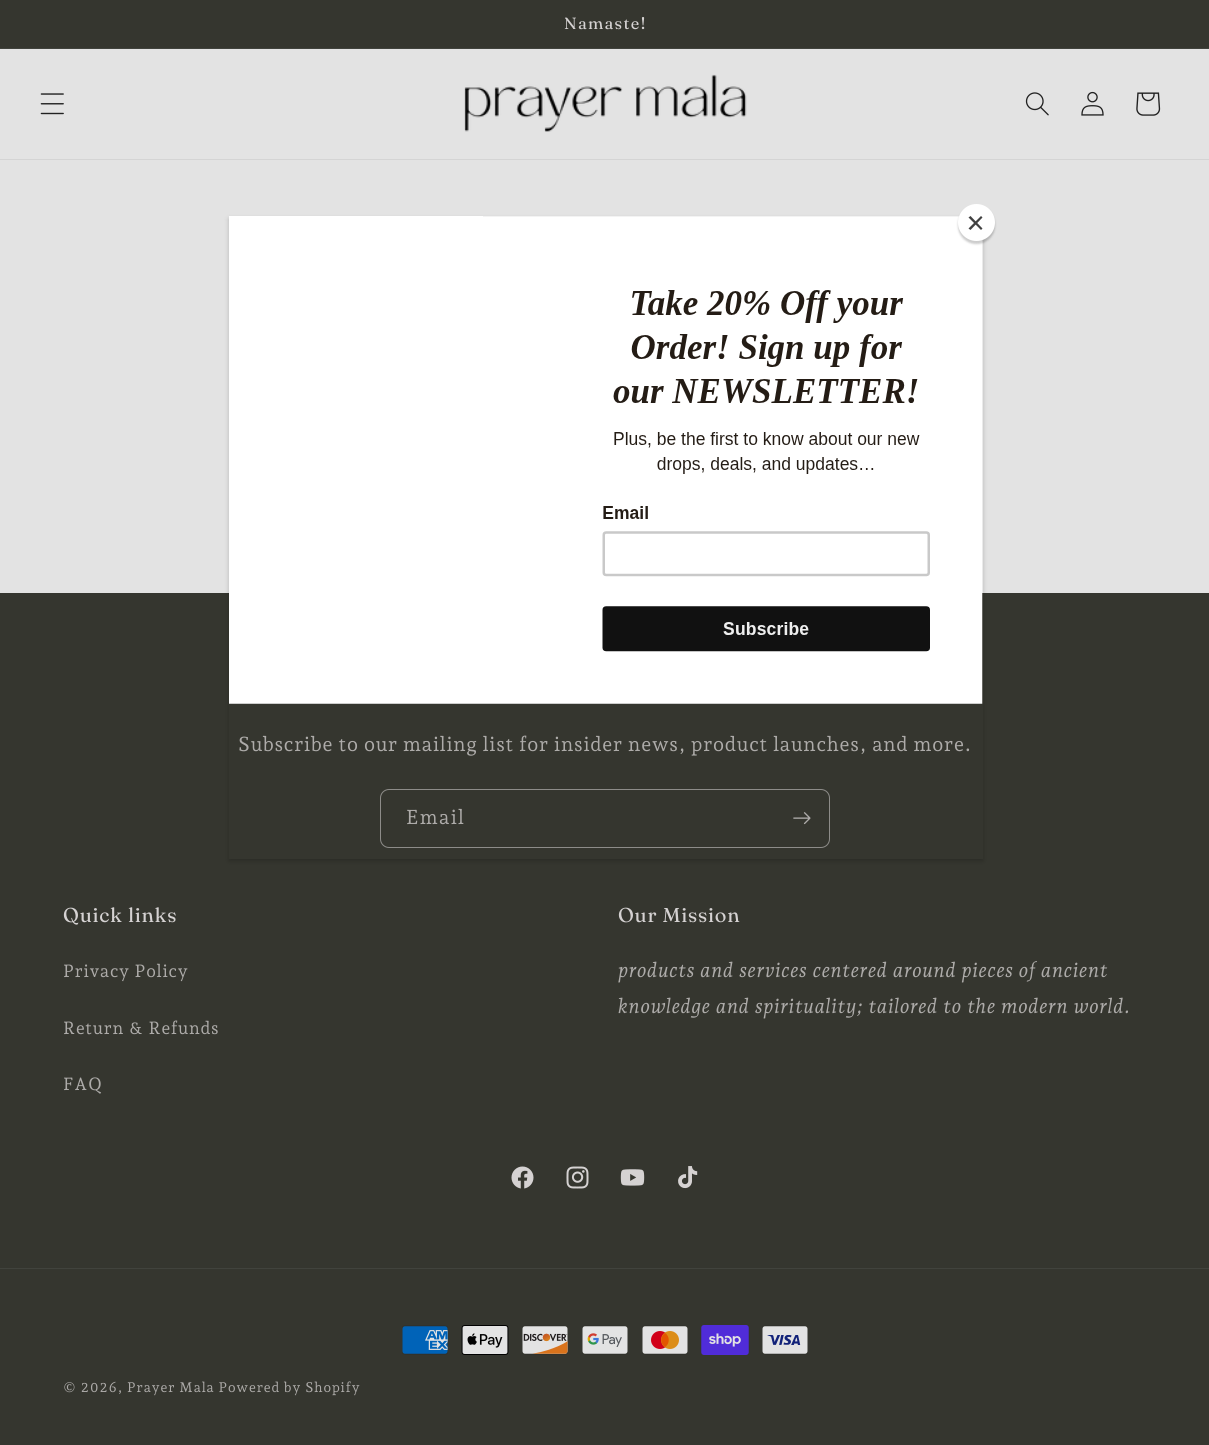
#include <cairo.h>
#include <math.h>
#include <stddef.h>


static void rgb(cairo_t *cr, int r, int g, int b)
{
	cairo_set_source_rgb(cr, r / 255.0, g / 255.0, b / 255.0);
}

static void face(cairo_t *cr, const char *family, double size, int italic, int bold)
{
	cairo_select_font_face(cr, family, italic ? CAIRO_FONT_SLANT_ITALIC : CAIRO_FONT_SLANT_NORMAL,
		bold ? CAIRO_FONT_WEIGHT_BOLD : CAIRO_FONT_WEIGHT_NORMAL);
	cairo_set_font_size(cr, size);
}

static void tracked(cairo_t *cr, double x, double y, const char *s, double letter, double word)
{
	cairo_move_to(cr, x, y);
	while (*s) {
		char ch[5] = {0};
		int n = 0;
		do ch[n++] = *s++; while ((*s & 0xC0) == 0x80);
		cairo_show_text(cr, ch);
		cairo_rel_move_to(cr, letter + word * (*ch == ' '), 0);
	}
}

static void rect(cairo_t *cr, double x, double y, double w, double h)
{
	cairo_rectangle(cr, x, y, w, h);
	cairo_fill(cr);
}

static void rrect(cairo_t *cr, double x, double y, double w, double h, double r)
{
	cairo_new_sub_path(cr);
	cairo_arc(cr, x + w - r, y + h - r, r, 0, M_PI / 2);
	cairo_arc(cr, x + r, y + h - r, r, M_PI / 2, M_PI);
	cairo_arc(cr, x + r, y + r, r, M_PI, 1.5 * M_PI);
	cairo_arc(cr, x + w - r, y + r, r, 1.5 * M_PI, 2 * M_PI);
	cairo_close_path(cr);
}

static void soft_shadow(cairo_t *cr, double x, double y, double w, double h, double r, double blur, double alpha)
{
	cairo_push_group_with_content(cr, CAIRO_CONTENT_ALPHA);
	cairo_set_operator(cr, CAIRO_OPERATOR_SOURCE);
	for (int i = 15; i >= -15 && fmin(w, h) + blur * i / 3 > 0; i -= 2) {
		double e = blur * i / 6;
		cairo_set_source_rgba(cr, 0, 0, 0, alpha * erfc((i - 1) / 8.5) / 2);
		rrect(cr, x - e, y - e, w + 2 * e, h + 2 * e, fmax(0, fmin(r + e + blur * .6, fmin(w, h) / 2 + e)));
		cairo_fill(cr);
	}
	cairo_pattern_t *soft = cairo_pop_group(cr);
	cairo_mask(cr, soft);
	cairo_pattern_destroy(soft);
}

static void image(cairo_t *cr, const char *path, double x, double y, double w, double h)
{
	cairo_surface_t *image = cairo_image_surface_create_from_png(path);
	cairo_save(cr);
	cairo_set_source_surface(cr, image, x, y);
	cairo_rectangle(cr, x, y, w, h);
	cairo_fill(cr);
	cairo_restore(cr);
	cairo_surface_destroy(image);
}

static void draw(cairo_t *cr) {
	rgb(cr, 227, 227, 227);
	cairo_paint(cr);
	rgb(cr, 53, 54, 47);
	rect(cr, 0, 0, 1209, 48);
	rgb(cr, 65, 67, 61);
	rect(cr, 0, 48, 1209, 1);
	face(cr, "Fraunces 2", 16.25, 0, 0);
	rgb(cr, 213, 210, 210);
	tracked(cr, 564, 29, "Namaste!", 1.25, 0);
	rgb(cr, 212, 212, 212);
	rect(cr, 0, 159, 1209, 1);
	image(cr, "image0.png", 40, 93, 24, 22);
	image(cr, "image1.png", 464, 74, 283, 58);
	image(cr, "image2.png", 1025, 92, 24, 24);
	image(cr, "image3.png", 1081, 91, 23, 25);
	image(cr, "image4.png", 1136, 92, 25, 24);
	rgb(cr, 53, 54, 47);
	rect(cr, 0, 593, 1209, 852);
	rrect(cr, 380.5, 789.5, 449, 58, 8.5);
	rgb(cr, 141, 140, 137);
	cairo_set_line_width(cr, 1);
	cairo_stroke(cr);
	image(cr, "image6.png", 793, 812, 18, 13);
	cairo_save(cr);
	cairo_set_fill_rule(cr, CAIRO_FILL_RULE_EVEN_ODD);
	cairo_new_path(cr);
	cairo_move_to(cr, 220, 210);
	cairo_line_to(cr, 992, 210);
	cairo_line_to(cr, 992, 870);
	cairo_line_to(cr, 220, 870);
	cairo_close_path(cr);
	cairo_move_to(cr, 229, 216);
	cairo_line_to(cr, 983, 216);
	cairo_line_to(cr, 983, 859);
	cairo_line_to(cr, 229, 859);
	cairo_close_path(cr);
	cairo_clip(cr);
	rgb(cr, 0, 0, 0);
	soft_shadow(cr, 229, 219, 754, 642, 0, 2.5, 0.2);
	cairo_restore(cr);
	image(cr, "image5.png", 229, 216, 754, 488);
	rgb(cr, 0, 0, 0);
	soft_shadow(cr, 958, 206, 37, 38, 18.5, 1, 0.2);
	rgb(cr, 255, 255, 255);
	cairo_arc(cr, 976.5, 222.5, 18.5, 0, 2 * M_PI);
	cairo_fill(cr);
	rgb(cr, 65, 65, 65);
	cairo_new_path(cr);
	cairo_move_to(cr, 981, 216);
	cairo_line_to(cr, 982.5, 217.5);
	cairo_line_to(cr, 970.5, 230);
	cairo_line_to(cr, 968.5, 228.5);
	cairo_close_path(cr);
	cairo_fill(cr);
	cairo_new_path(cr);
	cairo_move_to(cr, 968.5, 217.5);
	cairo_line_to(cr, 970.5, 216);
	cairo_line_to(cr, 982.5, 228.5);
	cairo_line_to(cr, 981, 230);
	cairo_close_path(cr);
	cairo_fill(cr);
	face(cr, "Andada Pro", 20, 0, 0);
	rgb(cr, 173, 171, 169);
	tracked(cr, 238, 751, "Subscribe to our mailing list for insider news, product launches, and more.", 0.75, 0);
	tracked(cr, 406, 824, "Email", 1.25, 0);
	face(cr, "Fraunces", 20, 0, 0);
	rgb(cr, 213, 210, 210);
	tracked(cr, 63, 922, "Quick links", 0.75, 0);
	face(cr, "Andada Pro", 17.5, 0, 0);
	rgb(cr, 173, 171, 169);
	tracked(cr, 63, 977, "Privacy Policy", 0.75, 0);
	tracked(cr, 63, 1034, "Return & Refunds", 0.75, 0);
	tracked(cr, 63, 1090, "FAQ", 0.75, 0);
	face(cr, "Fraunces", 20, 0, 0);
	rgb(cr, 213, 210, 210);
	tracked(cr, 618, 922, "Our Mission", 0.75, 0);
	face(cr, "Andada Pro", 20, 1, 0);
	rgb(cr, 173, 171, 169);
	tracked(cr, 618, 977, "products and services centered around pieces of ancient", 0.75, 0);
	tracked(cr, 618, 1013, "knowledge and spirituality; tailored to the modern world.", 0.75, 0);
	image(cr, "image7.png", 511, 1166, 23, 23);
	image(cr, "image8.png", 566, 1166, 23, 23);
	image(cr, "image9.png", 620, 1169, 25, 17);
	image(cr, "image10.png", 678, 1166, 20, 23);
	rgb(cr, 65, 67, 61);
	rect(cr, 0, 1268, 1209, 1);
	image(cr, "image11.png", 402, 1325, 46, 30);
	image(cr, "image12.png", 461, 1325, 48, 30);
	image(cr, "image13.png", 522, 1325, 46, 30);
	image(cr, "image14.png", 582, 1325, 46, 30);
	image(cr, "image15.png", 642, 1325, 46, 30);
	image(cr, "image16.png", 701, 1325, 48, 30);
	image(cr, "image17.png", 762, 1325, 46, 30);
	face(cr, "Andada Pro", 13.75, 0, 0);
	rgb(cr, 173, 171, 169);
	tracked(cr, 63, 1392, "© 2026, Prayer Mala Powered by Shopify", 0.9, 0);
}

int main(void) {
	cairo_surface_t *surface = cairo_image_surface_create(CAIRO_FORMAT_RGB24, 1209, 1445);
	cairo_t *cr = cairo_create(surface);
	cairo_font_options_t *options = cairo_font_options_create();
	cairo_font_options_set_hint_metrics(options, CAIRO_HINT_METRICS_OFF);
	cairo_font_options_set_hint_style(options, CAIRO_HINT_STYLE_NONE);
	cairo_set_font_options(cr, options);
	cairo_set_miter_limit(cr, 4);
	draw(cr);
	cairo_surface_write_to_png(surface, "render.png");
	cairo_font_options_destroy(options);
	cairo_destroy(cr);
	cairo_surface_destroy(surface);
	return 0;
}
